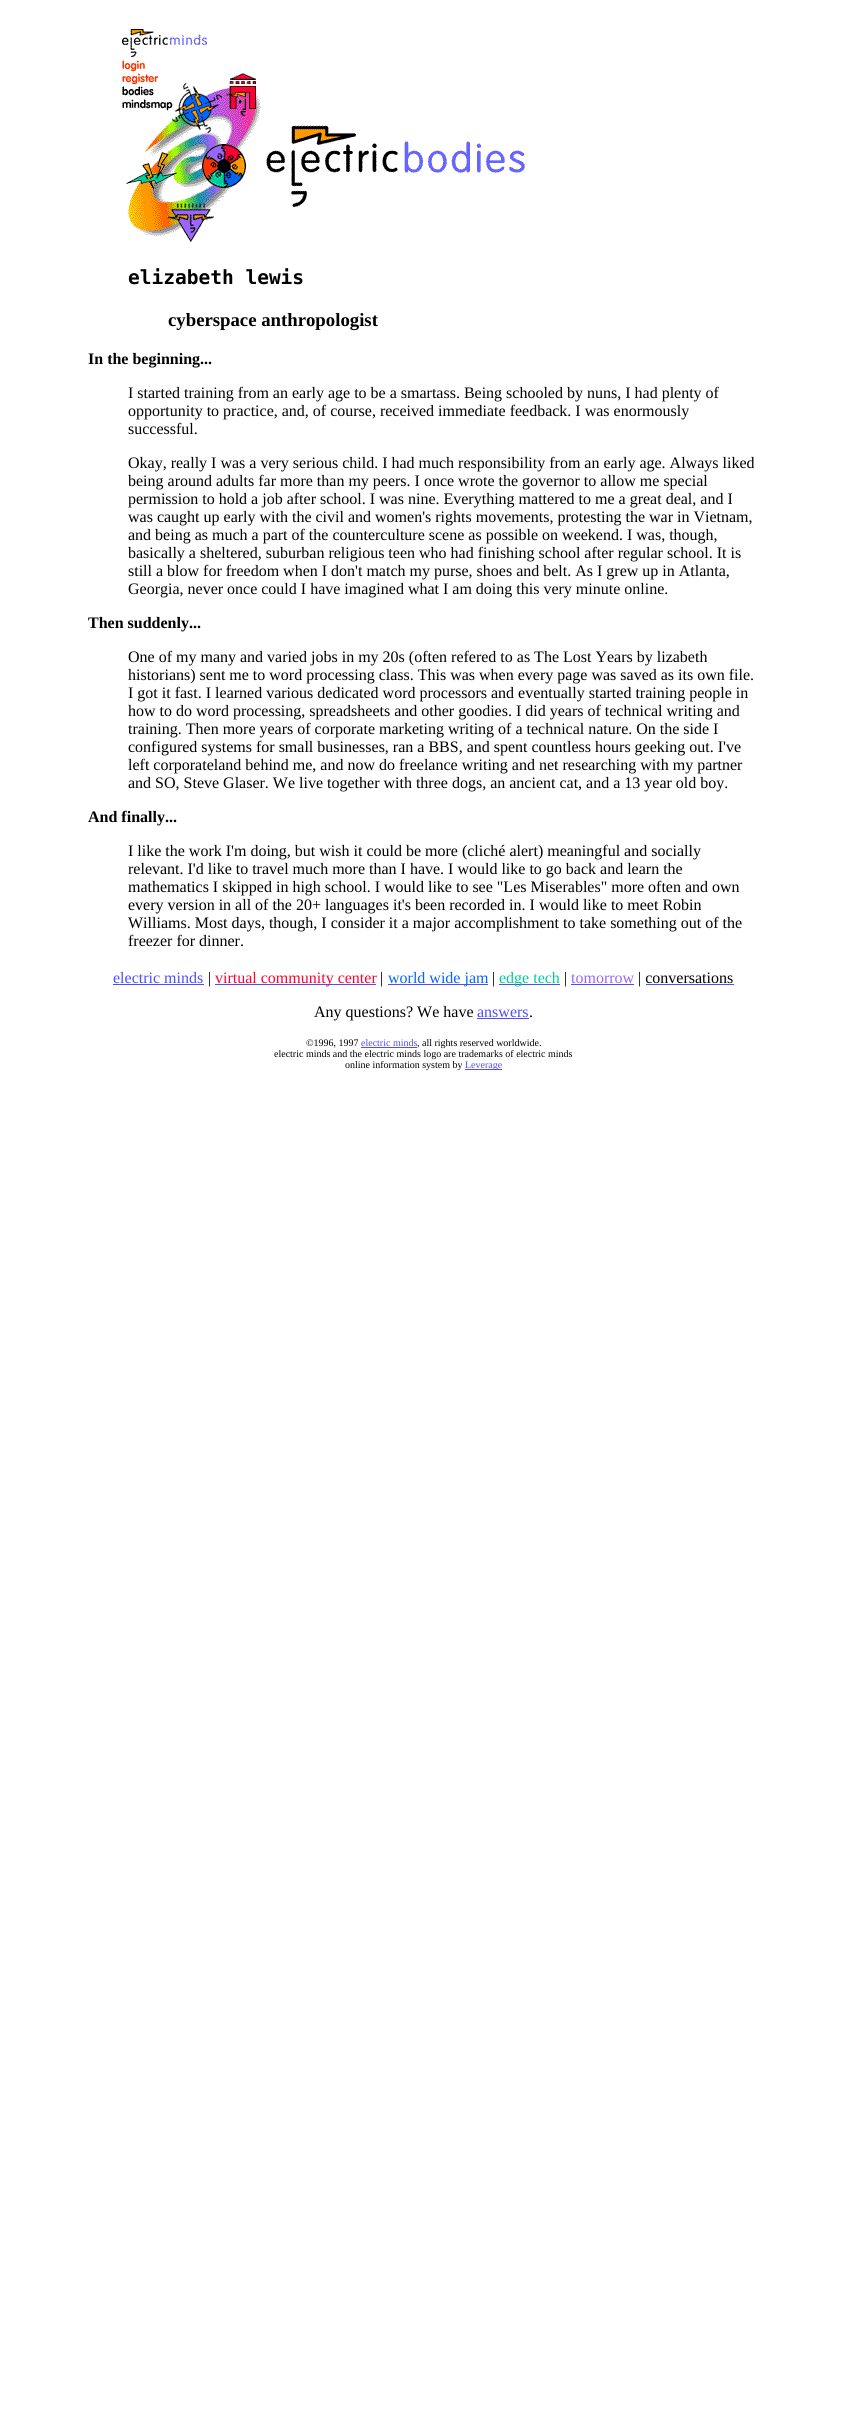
#include <cairo.h>
#include <math.h>
#include <stddef.h>


static void rgb(cairo_t *cr, int r, int g, int b)
{
	cairo_set_source_rgb(cr, r / 255.0, g / 255.0, b / 255.0);
}

static void face(cairo_t *cr, const char *family, double size, int italic, int bold)
{
	cairo_select_font_face(cr, family, italic ? CAIRO_FONT_SLANT_ITALIC : CAIRO_FONT_SLANT_NORMAL,
		bold ? CAIRO_FONT_WEIGHT_BOLD : CAIRO_FONT_WEIGHT_NORMAL);
	cairo_set_font_size(cr, size);
}

static void label(cairo_t *cr, double x, double y, const char *s)
{
	cairo_move_to(cr, x, y);
	cairo_show_text(cr, s);
}

static void rect(cairo_t *cr, double x, double y, double w, double h)
{
	cairo_rectangle(cr, x, y, w, h);
	cairo_fill(cr);
}

static void image(cairo_t *cr, const char *path, double x, double y, double w, double h)
{
	cairo_surface_t *image = cairo_image_surface_create_from_png(path);
	cairo_save(cr);
	cairo_set_source_surface(cr, image, x, y);
	cairo_rectangle(cr, x, y, w, h);
	cairo_fill(cr);
	cairo_restore(cr);
	cairo_surface_destroy(image);
}

static void draw(cairo_t *cr) {
	rgb(cr, 255, 255, 255);
	cairo_paint(cr);
	image(cr, "image0.png", 122, 29, 139, 213);
	image(cr, "image1.png", 266, 125, 259, 82);
	face(cr, "DejaVu Sans Mono", 19.5, 0, 1);
	rgb(cr, 0, 0, 0);
	label(cr, 128, 284, "elizabeth lewis");
	face(cr, "Liberation Serif", 18.75, 0, 1);
	label(cr, 168, 326, "cyberspace anthropologist");
	face(cr, "Liberation Serif", 16, 0, 1);
	label(cr, 88, 364, "In the beginning...");
	face(cr, "Liberation Serif", 16, 0, 0);
	label(cr, 128, 398, "I started training from an early age to be a smartass. Being schooled by nuns, I had plenty of");
	label(cr, 128, 416, "opportunity to practice, and, of course, received immediate feedback. I was enormously");
	label(cr, 128, 434, "successful.");
	label(cr, 128, 468, "Okay, really I was a very serious child. I had much responsibility from an early age. Always liked");
	label(cr, 128, 486, "being around adults far more than my peers. I once wrote the governor to allow me special");
	label(cr, 128, 504, "permission to hold a job after school. I was nine. Everything mattered to me a great deal, and I");
	label(cr, 128, 522, "was caught up early with the civil and women's rights movements, protesting the war in Vietnam,");
	label(cr, 128, 540, "and being as much a part of the counterculture scene as possible on weekend. I was, though,");
	label(cr, 128, 558, "basically a sheltered, suburban religious teen who had finishing school after regular school. It is");
	label(cr, 128, 576, "still a blow for freedom when I don't match my purse, shoes and belt. As I grew up in Atlanta,");
	label(cr, 128, 594, "Georgia, never once could I have imagined what I am doing this very minute online.");
	face(cr, "Liberation Serif", 16, 0, 1);
	label(cr, 88, 628, "Then suddenly...");
	face(cr, "Liberation Serif", 16, 0, 0);
	label(cr, 128, 662, "One of my many and varied jobs in my 20s (often refered to as The Lost Years by lizabeth");
	label(cr, 128, 680, "historians) sent me to word processing class. This was when every page was saved as its own file.");
	label(cr, 128, 698, "I got it fast. I learned various dedicated word processors and eventually started training people in");
	label(cr, 128, 716, "how to do word processing, spreadsheets and other goodies. I did years of technical writing and");
	label(cr, 128, 734, "training. Then more years of corporate marketing writing of a technical nature. On the side I");
	label(cr, 128, 752, "configured systems for small businesses, ran a BBS, and spent countless hours geeking out. I've");
	label(cr, 128, 770, "left corporateland behind me, and now do freelance writing and net researching with my partner");
	label(cr, 128, 788, "and SO, Steve Glaser. We live together with three dogs, an ancient cat, and a 13 year old boy.");
	face(cr, "Liberation Serif", 16, 0, 1);
	label(cr, 88, 822, "And finally...");
	face(cr, "Liberation Serif", 16, 0, 0);
	label(cr, 128, 856, "I like the work I'm doing, but wish it could be more (cliché alert) meaningful and socially");
	label(cr, 128, 874, "relevant. I'd like to travel much more than I have. I would like to go back and learn the");
	label(cr, 128, 892, "mathematics I skipped in high school. I would like to see \"Les Miserables\" more often and own");
	label(cr, 128, 910, "every version in all of the 20+ languages it's been recorded in. I would like to meet Robin");
	label(cr, 128, 928, "Williams. Most days, though, I consider it a major accomplishment to take something out of the");
	label(cr, 128, 946, "freezer for dinner.");
	rgb(cr, 77, 77, 255);
	label(cr, 113, 983, "electric minds");
	rect(cr, 113, 984, 91, 1);
	rgb(cr, 0, 0, 0);
	label(cr, 208, 983, "|");
	rgb(cr, 77, 77, 255);
	rect(cr, 215, 984, 161, 1);
	rgb(cr, 255, 0, 51);
	label(cr, 215, 983, "virtual community center");
	rgb(cr, 0, 0, 0);
	label(cr, 380, 983, "|");
	rgb(cr, 77, 77, 255);
	rect(cr, 388, 984, 100, 1);
	rgb(cr, 0, 102, 255);
	label(cr, 388, 983, "world wide jam");
	rgb(cr, 0, 0, 0);
	label(cr, 492, 983, "|");
	rgb(cr, 77, 77, 255);
	rect(cr, 499, 984, 61, 1);
	rgb(cr, 0, 204, 153);
	label(cr, 499, 983, "edge tech");
	rgb(cr, 0, 0, 0);
	label(cr, 564, 983, "|");
	rgb(cr, 153, 102, 255);
	label(cr, 571, 983, "tomorrow");
	rgb(cr, 77, 77, 255);
	rect(cr, 571, 984, 63, 1);
	rgb(cr, 0, 0, 0);
	label(cr, 638, 983, "| conversations");
	rgb(cr, 77, 77, 255);
	rect(cr, 646, 984, 88, 1);
	rgb(cr, 0, 0, 0);
	label(cr, 314, 1017, "Any questions? We have");
	rgb(cr, 77, 77, 255);
	label(cr, 477, 1017, "answers");
	rgb(cr, 0, 0, 0);
	label(cr, 529, 1017, ".");
	rgb(cr, 77, 77, 255);
	rect(cr, 477, 1018, 52, 1);
	face(cr, "Liberation Serif", 10, 0, 0);
	rgb(cr, 0, 0, 0);
	label(cr, 306, 1046, "©1996, 1997");
	rgb(cr, 77, 77, 255);
	label(cr, 361, 1046, "electric minds");
	rgb(cr, 0, 0, 0);
	label(cr, 417, 1046, ", all rights reserved worldwide.");
	rgb(cr, 77, 77, 255);
	rect(cr, 361, 1047, 56, 1);
	rgb(cr, 0, 0, 0);
	label(cr, 274, 1057, "electric minds and the electric minds logo are trademarks of electric minds");
	label(cr, 345, 1068, "online information system by");
	rgb(cr, 77, 77, 255);
	rect(cr, 465, 1069, 37, 1);
	label(cr, 465, 1068, "Leverage");
}

int main(void) {
	cairo_surface_t *surface = cairo_image_surface_create(CAIRO_FORMAT_RGB24, 847, 2421);
	cairo_t *cr = cairo_create(surface);
	cairo_font_options_t *options = cairo_font_options_create();
	cairo_font_options_set_hint_metrics(options, CAIRO_HINT_METRICS_OFF);
	cairo_font_options_set_hint_style(options, CAIRO_HINT_STYLE_NONE);
	cairo_set_font_options(cr, options);
	cairo_set_miter_limit(cr, 4);
	draw(cr);
	cairo_surface_write_to_png(surface, "render.png");
	cairo_font_options_destroy(options);
	cairo_destroy(cr);
	cairo_surface_destroy(surface);
	return 0;
}
